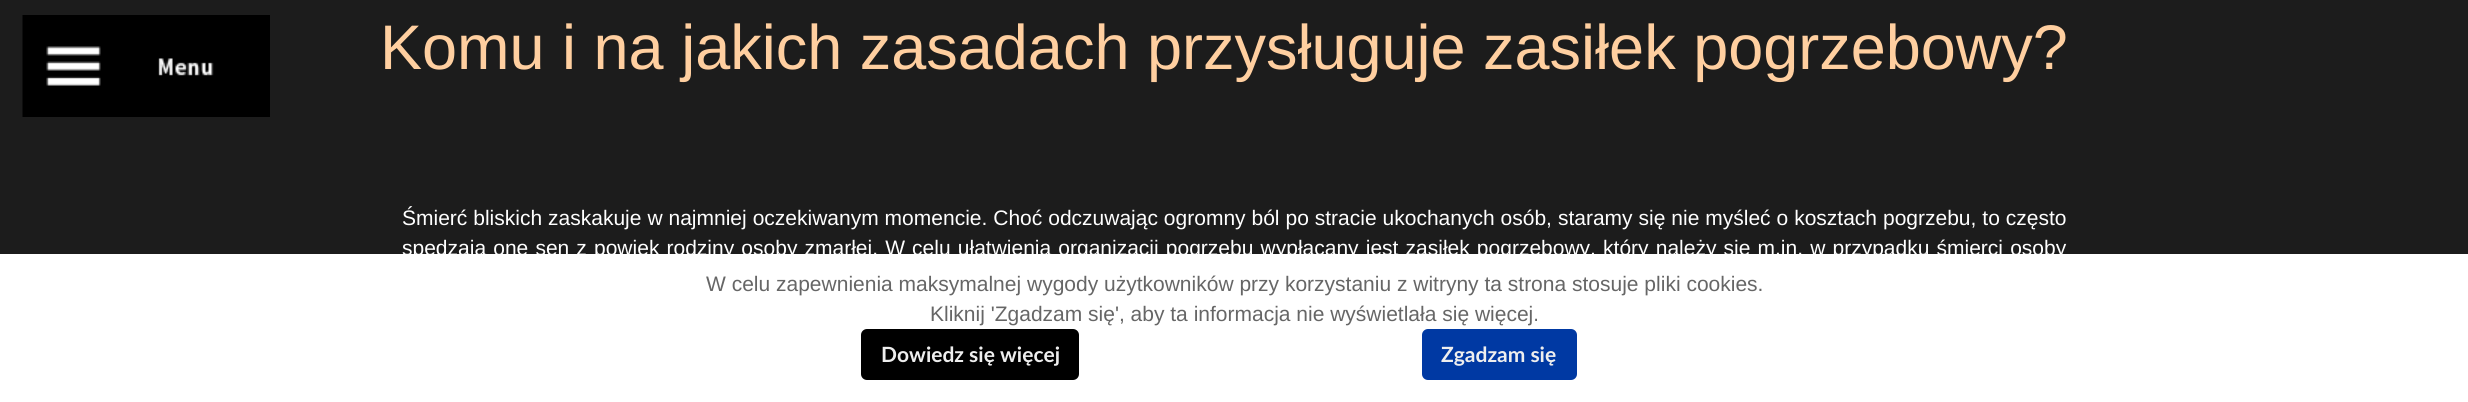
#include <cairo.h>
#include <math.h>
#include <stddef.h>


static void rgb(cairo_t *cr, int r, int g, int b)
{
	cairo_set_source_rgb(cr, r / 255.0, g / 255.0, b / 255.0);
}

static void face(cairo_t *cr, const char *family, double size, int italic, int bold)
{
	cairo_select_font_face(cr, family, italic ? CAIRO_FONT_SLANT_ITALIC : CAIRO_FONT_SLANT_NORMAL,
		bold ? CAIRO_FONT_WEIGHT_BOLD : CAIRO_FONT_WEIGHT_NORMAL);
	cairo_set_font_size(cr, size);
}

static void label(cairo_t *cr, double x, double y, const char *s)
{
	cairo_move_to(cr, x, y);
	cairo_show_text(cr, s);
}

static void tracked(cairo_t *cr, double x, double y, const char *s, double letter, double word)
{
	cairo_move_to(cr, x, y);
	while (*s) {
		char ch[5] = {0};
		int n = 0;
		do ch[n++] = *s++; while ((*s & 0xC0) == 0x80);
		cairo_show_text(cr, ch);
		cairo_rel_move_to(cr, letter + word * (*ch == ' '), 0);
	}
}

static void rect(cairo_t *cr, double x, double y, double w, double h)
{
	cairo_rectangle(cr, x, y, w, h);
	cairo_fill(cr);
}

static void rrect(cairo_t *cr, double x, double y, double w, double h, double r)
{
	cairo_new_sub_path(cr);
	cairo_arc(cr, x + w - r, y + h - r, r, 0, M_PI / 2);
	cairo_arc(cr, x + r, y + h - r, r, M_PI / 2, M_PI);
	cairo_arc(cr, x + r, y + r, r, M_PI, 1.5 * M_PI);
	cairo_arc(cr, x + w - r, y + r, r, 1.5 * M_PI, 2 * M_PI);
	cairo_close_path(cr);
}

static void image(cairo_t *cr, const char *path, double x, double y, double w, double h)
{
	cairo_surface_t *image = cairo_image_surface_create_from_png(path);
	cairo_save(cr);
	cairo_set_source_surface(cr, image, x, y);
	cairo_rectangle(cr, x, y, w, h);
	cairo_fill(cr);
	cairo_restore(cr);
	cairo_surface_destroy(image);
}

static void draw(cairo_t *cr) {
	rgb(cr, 28, 28, 28);
	cairo_paint(cr);
	image(cr, "image0.png", 22, 15, 248, 102);
	face(cr, "Liberation Sans", 63, 0, 0);
	rgb(cr, 255, 207, 160);
	label(cr, 380, 69, "Komu i na jakich zasadach przysługuje zasiłek pogrzebowy?");
	face(cr, "Liberation Sans", 21, 0, 0);
	rgb(cr, 255, 255, 255);
	tracked(cr, 402, 225, "Śmierć bliskich zaskakuje w najmniej oczekiwanym momencie. Choć odczuwając ogromny ból po stracie ukochanych osób, staramy się nie myśleć o kosztach pogrzebu, to często", 0, 0.1);
	tracked(cr, 402, 255, "spędzają one sen z powiek rodziny osoby zmarłej. W celu ułatwienia organizacji pogrzebu wypłacany jest zasiłek pogrzebowy, który należy się m.in. w przypadku śmierci osoby", 0, 1.3);
	rect(cr, 0, 254, 2468, 148);
	rgb(cr, 102, 102, 102);
	label(cr, 706, 291, "W celu zapewnienia maksymalnej wygody użytkowników przy korzystaniu z witryny ta strona stosuje pliki cookies.");
	label(cr, 930, 321, "Kliknij 'Zgadzam się', aby ta informacja nie wyświetlała się więcej.");
	rgb(cr, 0, 0, 0);
	rrect(cr, 861, 329, 218, 51, 6);
	cairo_fill(cr);
	face(cr, "Lato", 21, 0, 1);
	rgb(cr, 238, 238, 238);
	label(cr, 881, 362, "Dowiedz się więcej");
	rgb(cr, 0, 57, 163);
	rrect(cr, 1422, 329, 155, 51, 6);
	cairo_fill(cr);
	rgb(cr, 238, 238, 238);
	label(cr, 1441, 362, "Zgadzam się");
}

int main(void) {
	cairo_surface_t *surface = cairo_image_surface_create(CAIRO_FORMAT_RGB24, 2468, 402);
	cairo_t *cr = cairo_create(surface);
	cairo_font_options_t *options = cairo_font_options_create();
	cairo_font_options_set_hint_metrics(options, CAIRO_HINT_METRICS_OFF);
	cairo_font_options_set_hint_style(options, CAIRO_HINT_STYLE_NONE);
	cairo_set_font_options(cr, options);
	cairo_set_miter_limit(cr, 4);
	draw(cr);
	cairo_surface_write_to_png(surface, "render.png");
	cairo_font_options_destroy(options);
	cairo_destroy(cr);
	cairo_surface_destroy(surface);
	return 0;
}
